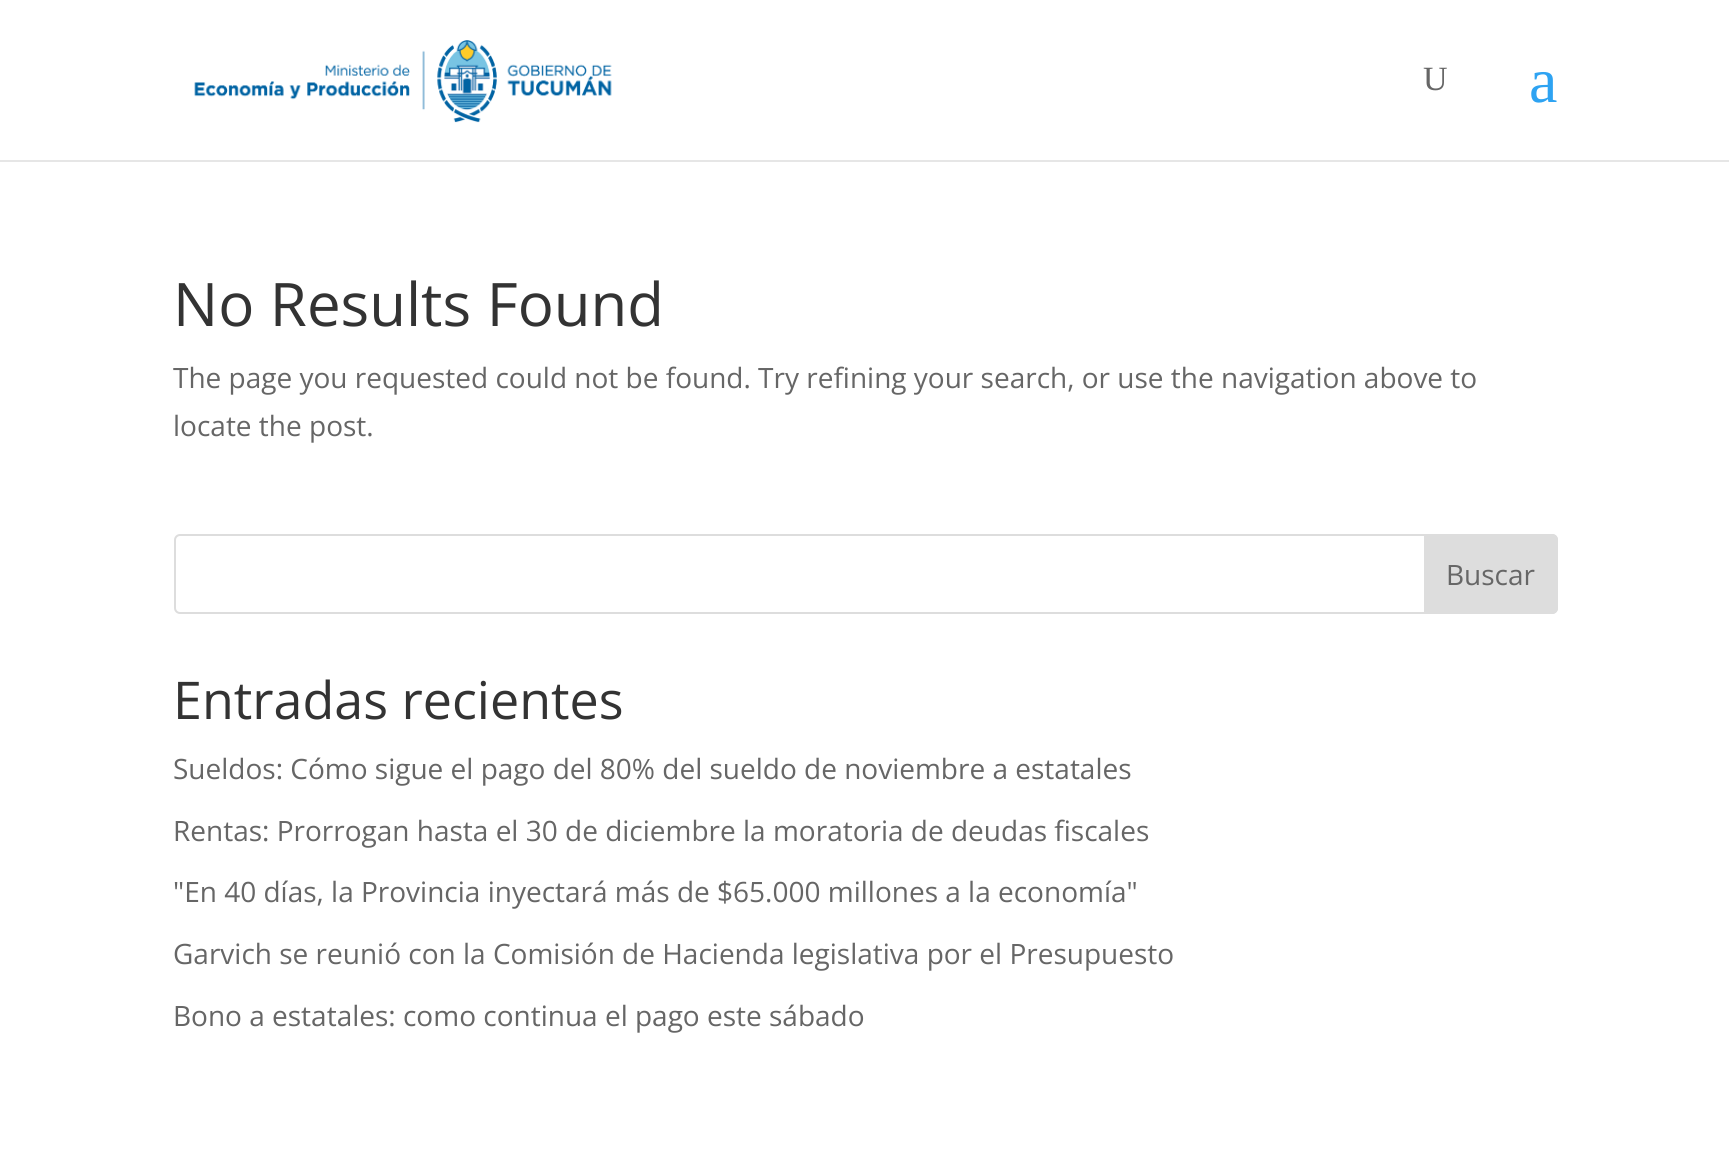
#include <cairo.h>
#include <math.h>
#include <stddef.h>


static void rgb(cairo_t *cr, int r, int g, int b)
{
	cairo_set_source_rgb(cr, r / 255.0, g / 255.0, b / 255.0);
}

static void face(cairo_t *cr, const char *family, double size, int italic, int bold)
{
	cairo_select_font_face(cr, family, italic ? CAIRO_FONT_SLANT_ITALIC : CAIRO_FONT_SLANT_NORMAL,
		bold ? CAIRO_FONT_WEIGHT_BOLD : CAIRO_FONT_WEIGHT_NORMAL);
	cairo_set_font_size(cr, size);
}

static void label(cairo_t *cr, double x, double y, const char *s)
{
	cairo_move_to(cr, x, y);
	cairo_show_text(cr, s);
}

static void rect(cairo_t *cr, double x, double y, double w, double h)
{
	cairo_rectangle(cr, x, y, w, h);
	cairo_fill(cr);
}

static void rrect(cairo_t *cr, double x, double y, double w, double h, double r)
{
	cairo_new_sub_path(cr);
	cairo_arc(cr, x + w - r, y + h - r, r, 0, M_PI / 2);
	cairo_arc(cr, x + r, y + h - r, r, M_PI / 2, M_PI);
	cairo_arc(cr, x + r, y + r, r, M_PI, 1.5 * M_PI);
	cairo_arc(cr, x + w - r, y + r, r, 1.5 * M_PI, 2 * M_PI);
	cairo_close_path(cr);
}

static void image(cairo_t *cr, const char *path, double x, double y, double w, double h)
{
	cairo_surface_t *image = cairo_image_surface_create_from_png(path);
	cairo_save(cr);
	cairo_set_source_surface(cr, image, x, y);
	cairo_rectangle(cr, x, y, w, h);
	cairo_fill(cr);
	cairo_restore(cr);
	cairo_surface_destroy(image);
}

static void draw(cairo_t *cr) {
	rgb(cr, 255, 255, 255);
	cairo_paint(cr);
	rgb(cr, 230, 230, 230);
	rect(cr, 0, 160, 1729, 2);
	image(cr, "image0.png", 194, 40, 418, 83);
	face(cr, "Liberation Serif", 34, 0, 0);
	rgb(cr, 102, 102, 102);
	label(cr, 1423, 90, "U");
	face(cr, "Liberation Serif", 64, 0, 0);
	rgb(cr, 46, 163, 242);
	label(cr, 1529, 102, "a");
	face(cr, "Open Sans", 60, 0, 0);
	rgb(cr, 51, 51, 51);
	label(cr, 173, 326, "No Results Found");
	face(cr, "Open Sans", 28, 0, 0);
	rgb(cr, 102, 102, 102);
	label(cr, 173, 388, "The page you requested could not be found. Try refining your search, or use the navigation above to");
	label(cr, 173, 436, "locate the post.");
	rrect(cr, 175, 535, 1382, 78, 5);
	rgb(cr, 221, 221, 221);
	cairo_stroke(cr);
	cairo_new_path(cr);
	cairo_move_to(cr, 1425, 535);
	cairo_line_to(cr, 1552, 535);
	cairo_curve_to(cr, 1555, 535, 1557, 537, 1557, 540);
	cairo_line_to(cr, 1557, 608);
	cairo_curve_to(cr, 1557, 611, 1555, 613, 1552, 613);
	cairo_line_to(cr, 1425, 613);
	cairo_close_path(cr);
	cairo_fill_preserve(cr);
	cairo_stroke(cr);
	rgb(cr, 102, 102, 102);
	label(cr, 1446, 585, "Buscar");
	face(cr, "Open Sans", 52, 0, 0);
	rgb(cr, 51, 51, 51);
	label(cr, 173, 719, "Entradas recientes");
	face(cr, "Open Sans", 28, 0, 0);
	rgb(cr, 102, 102, 102);
	label(cr, 173, 779, "Sueldos: Cómo sigue el pago del 80% del sueldo de noviembre a estatales");
	label(cr, 173, 841, "Rentas: Prorrogan hasta el 30 de diciembre la moratoria de deudas fiscales");
	label(cr, 173, 902, "\"En 40 días, la Provincia inyectará más de $65.000 millones a la economía\"");
	label(cr, 173, 964, "Garvich se reunió con la Comisión de Hacienda legislativa por el Presupuesto");
	label(cr, 173, 1026, "Bono a estatales: como continua el pago este sábado");
}

int main(void) {
	cairo_surface_t *surface = cairo_image_surface_create(CAIRO_FORMAT_RGB24, 1729, 1168);
	cairo_t *cr = cairo_create(surface);
	cairo_font_options_t *options = cairo_font_options_create();
	cairo_font_options_set_hint_metrics(options, CAIRO_HINT_METRICS_OFF);
	cairo_font_options_set_hint_style(options, CAIRO_HINT_STYLE_NONE);
	cairo_set_font_options(cr, options);
	cairo_set_miter_limit(cr, 4);
	draw(cr);
	cairo_surface_write_to_png(surface, "render.png");
	cairo_font_options_destroy(options);
	cairo_destroy(cr);
	cairo_surface_destroy(surface);
	return 0;
}
